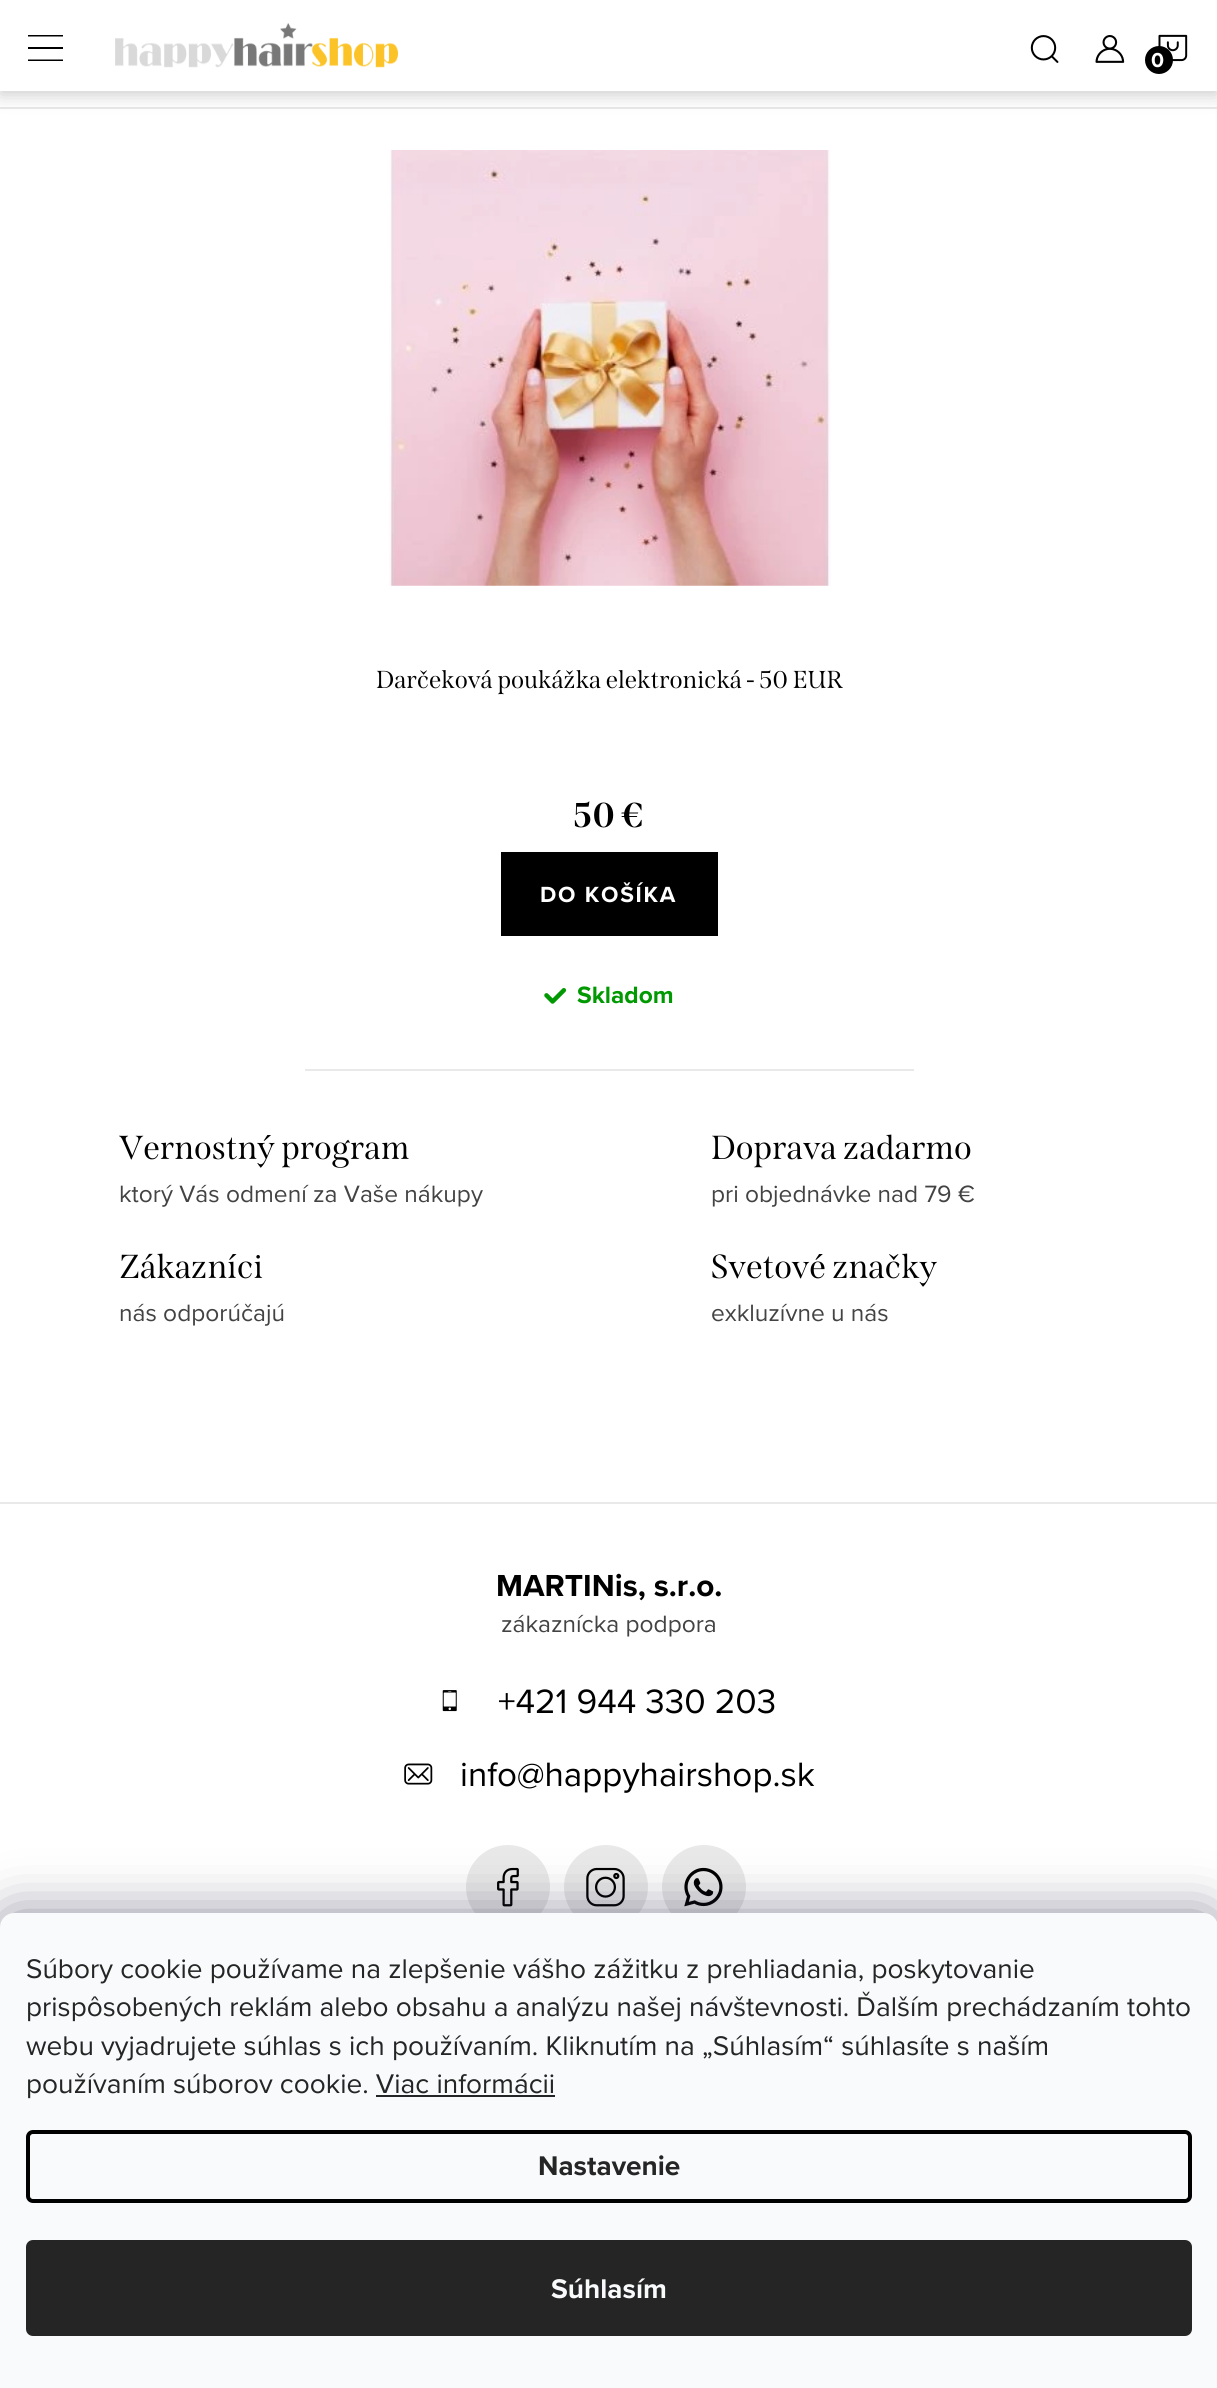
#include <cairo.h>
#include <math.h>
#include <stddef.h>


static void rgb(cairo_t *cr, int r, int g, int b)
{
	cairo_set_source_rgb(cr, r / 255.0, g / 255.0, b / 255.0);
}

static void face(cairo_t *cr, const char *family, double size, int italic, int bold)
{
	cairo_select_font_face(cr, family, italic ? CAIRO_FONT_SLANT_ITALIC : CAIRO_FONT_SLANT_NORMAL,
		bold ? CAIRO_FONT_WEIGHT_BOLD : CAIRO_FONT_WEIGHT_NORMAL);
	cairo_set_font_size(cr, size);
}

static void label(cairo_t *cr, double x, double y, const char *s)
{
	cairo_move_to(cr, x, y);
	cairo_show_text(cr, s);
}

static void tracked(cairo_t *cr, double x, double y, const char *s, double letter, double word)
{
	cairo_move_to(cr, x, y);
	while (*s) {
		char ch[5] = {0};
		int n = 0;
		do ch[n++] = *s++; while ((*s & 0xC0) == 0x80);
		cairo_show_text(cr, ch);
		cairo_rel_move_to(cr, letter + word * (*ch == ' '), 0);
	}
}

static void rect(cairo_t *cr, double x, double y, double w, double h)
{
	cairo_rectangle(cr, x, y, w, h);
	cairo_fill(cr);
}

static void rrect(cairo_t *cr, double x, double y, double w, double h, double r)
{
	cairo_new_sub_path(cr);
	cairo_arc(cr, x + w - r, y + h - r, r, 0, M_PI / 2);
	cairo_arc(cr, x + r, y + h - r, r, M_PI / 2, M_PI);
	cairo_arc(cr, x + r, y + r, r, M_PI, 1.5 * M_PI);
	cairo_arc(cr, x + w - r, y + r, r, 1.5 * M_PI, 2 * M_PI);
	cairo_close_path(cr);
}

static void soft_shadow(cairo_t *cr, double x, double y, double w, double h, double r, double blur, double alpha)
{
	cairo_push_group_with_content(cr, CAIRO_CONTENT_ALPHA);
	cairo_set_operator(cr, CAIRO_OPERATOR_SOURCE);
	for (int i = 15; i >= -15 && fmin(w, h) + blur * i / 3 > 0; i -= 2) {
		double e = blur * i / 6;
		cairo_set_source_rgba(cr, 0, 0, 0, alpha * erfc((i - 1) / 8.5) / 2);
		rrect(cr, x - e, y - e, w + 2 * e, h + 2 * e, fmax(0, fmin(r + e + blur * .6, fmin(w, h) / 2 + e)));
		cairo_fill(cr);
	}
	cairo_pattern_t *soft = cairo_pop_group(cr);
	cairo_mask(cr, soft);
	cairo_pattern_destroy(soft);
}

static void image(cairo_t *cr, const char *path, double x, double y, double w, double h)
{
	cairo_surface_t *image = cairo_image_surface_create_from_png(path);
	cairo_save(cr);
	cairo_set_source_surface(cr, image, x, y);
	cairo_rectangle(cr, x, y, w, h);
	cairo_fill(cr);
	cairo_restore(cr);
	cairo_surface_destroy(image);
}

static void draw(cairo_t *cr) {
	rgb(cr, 255, 255, 255);
	cairo_paint(cr);
	rgb(cr, 233, 233, 233);
	rect(cr, 0, 107, 1217, 2);
	rgb(cr, 0, 0, 0);
	soft_shadow(cr, 0, 4, 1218, 91, 0, 9, 0.2);
	rgb(cr, 255, 255, 255);
	rect(cr, 0, 0, 1217, 91);
	rgb(cr, 0, 0, 0);
	cairo_new_path(cr);
	cairo_move_to(cr, 28, 35);
	cairo_line_to(cr, 63, 35);
	cairo_line_to(cr, 63, 36.5);
	cairo_line_to(cr, 28, 36.5);
	cairo_close_path(cr);
	cairo_move_to(cr, 28, 47);
	cairo_line_to(cr, 63, 47);
	cairo_line_to(cr, 63, 49);
	cairo_line_to(cr, 28, 49);
	cairo_close_path(cr);
	cairo_move_to(cr, 28, 59.5);
	cairo_line_to(cr, 63, 59.5);
	cairo_line_to(cr, 63, 61);
	cairo_line_to(cr, 28, 61);
	cairo_close_path(cr);
	cairo_fill(cr);
	image(cr, "image0.png", 115, 23, 284, 45);
	image(cr, "image1.png", 1030, 35, 29, 28);
	image(cr, "image2.png", 1095, 35, 30, 28);
	image(cr, "image3.png", 1158, 34, 30, 28);
	cairo_arc(cr, 1159, 60, 14, 0, 2 * M_PI);
	cairo_fill(cr);
	face(cr, "Proxima Nova", 21, 0, 1);
	rgb(cr, 255, 255, 255);
	tracked(cr, 1151, 67, "0", 1.75, 0);
	rgb(cr, 233, 233, 233);
	rect(cr, 305, 1069, 609, 2);
	image(cr, "image4.png", 389, 150, 442, 436);
	face(cr, "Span", 24.5, 0, 0);
	rgb(cr, 0, 0, 0);
	label(cr, 376, 688, "Darčeková poukážka elektronická - 50 EUR");
	face(cr, "Span", 35, 0, 1);
	label(cr, 573, 827, "50 €");
	rect(cr, 501, 852, 217, 84);
	face(cr, "Proxima Nova", 22.75, 0, 1);
	rgb(cr, 255, 255, 255);
	tracked(cr, 540, 902, "DO KOŠÍKA", 1.75, 0);
	image(cr, "image5.png", 544, 988, 23, 16);
	face(cr, "Proxima Nova", 24.5, 0, 1);
	rgb(cr, 0, 153, 1);
	label(cr, 577, 1003, "Skladom");
	face(cr, "Span", 33.25, 0, 0);
	rgb(cr, 0, 0, 0);
	label(cr, 119, 1159, "Vernostný program");
	face(cr, "Proxima Nova", 24.5, 0, 0);
	rgb(cr, 67, 67, 67);
	label(cr, 119, 1202, "ktorý Vás odmení za Vaše nákupy");
	face(cr, "Span", 33.25, 0, 0);
	rgb(cr, 0, 0, 0);
	label(cr, 711, 1159, "Doprava zadarmo");
	face(cr, "Proxima Nova", 24.5, 0, 0);
	rgb(cr, 67, 67, 67);
	label(cr, 711, 1202, "pri objednávke nad 79 €");
	face(cr, "Span", 33.25, 0, 0);
	rgb(cr, 0, 0, 0);
	label(cr, 119, 1278, "Zákazníci");
	face(cr, "Proxima Nova", 24.5, 0, 0);
	rgb(cr, 67, 67, 67);
	label(cr, 119, 1321, "nás odporúčajú");
	face(cr, "Span", 33.25, 0, 0);
	rgb(cr, 0, 0, 0);
	label(cr, 711, 1278, "Svetové značky");
	face(cr, "Proxima Nova", 24.5, 0, 0);
	rgb(cr, 67, 67, 67);
	label(cr, 711, 1321, "exkluzívne u nás");
	rgb(cr, 233, 233, 233);
	rect(cr, 0, 1502, 1217, 2);
	face(cr, "Proxima Nova", 31.5, 0, 1);
	rgb(cr, 0, 0, 0);
	label(cr, 496, 1596, "MARTINis, s.r.o.");
	face(cr, "Proxima Nova", 24.5, 0, 0);
	rgb(cr, 67, 67, 67);
	label(cr, 501, 1632, "zákaznícka podpora");
	image(cr, "image6.png", 442, 1690, 15, 22);
	face(cr, "Proxima Nova", 35, 0, 0);
	rgb(cr, 0, 0, 0);
	label(cr, 498, 1713, "+421 944 330 203");
	image(cr, "image7.png", 404, 1763, 29, 22);
	label(cr, 460, 1786, "info@happyhairshop.sk");
	rgb(cr, 233, 233, 233);
	cairo_new_path(cr);
	cairo_arc(cr, 508, 1887, 42, 0, 2 * M_PI);
	cairo_fill(cr);
	image(cr, "image8.png", 497, 1867, 22, 40);
	cairo_arc(cr, 606, 1887, 42, 0, 2 * M_PI);
	cairo_fill(cr);
	image(cr, "image9.png", 586, 1867, 39, 40);
	cairo_arc(cr, 704, 1887, 42, 0, 2 * M_PI);
	cairo_fill(cr);
	image(cr, "image10.png", 684, 1867, 39, 40);
	rgb(cr, 27, 25, 57);
	soft_shadow(cr, 0, 1913, 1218, 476, 14, 26, 0.5);
	rgb(cr, 248, 250, 251);
	cairo_new_path(cr);
	cairo_move_to(cr, 14, 1913);
	cairo_line_to(cr, 1204, 1913);
	cairo_curve_to(cr, 1211.5, 1913, 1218, 1919.5, 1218, 1927);
	cairo_line_to(cr, 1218, 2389);
	cairo_line_to(cr, 0, 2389);
	cairo_line_to(cr, 0, 1927);
	cairo_curve_to(cr, 0, 1919.5, 6.5, 1913, 14, 1913);
	cairo_close_path(cr);
	cairo_fill(cr);
	face(cr, "Proxima Nova", 28, 0, 0);
	rgb(cr, 37, 37, 37);
	label(cr, 26, 1978, "Súbory cookie používame na zlepšenie vášho zážitku z prehliadania, poskytovanie");
	label(cr, 26, 2016, "prispôsobených reklám alebo obsahu a analýzu našej návštevnosti. Ďalším prechádzaním tohto");
	label(cr, 26, 2055, "webu vyjadrujete súhlas s ich používaním. Kliknutím na „Súhlasím“ súhlasíte s naším");
	label(cr, 26, 2093, "používaním súborov cookie. Viac informácii");
	rect(cr, 376, 2095, 179, 2);
	rrect(cr, 28, 2132, 1162, 69, 5);
	rgb(cr, 0, 0, 0);
	cairo_set_line_width(cr, 4);
	cairo_stroke(cr);
	face(cr, "Proxima Nova", 28, 0, 1);
	rgb(cr, 37, 37, 37);
	label(cr, 538, 2175, "Nastavenie");
	rrect(cr, 26, 2240, 1166, 96, 7);
	cairo_fill(cr);
	rgb(cr, 248, 250, 251);
	label(cr, 551, 2298, "Súhlasím");
}

int main(void) {
	cairo_surface_t *surface = cairo_image_surface_create(CAIRO_FORMAT_RGB24, 1217, 2388);
	cairo_t *cr = cairo_create(surface);
	cairo_font_options_t *options = cairo_font_options_create();
	cairo_font_options_set_hint_metrics(options, CAIRO_HINT_METRICS_OFF);
	cairo_font_options_set_hint_style(options, CAIRO_HINT_STYLE_NONE);
	cairo_set_font_options(cr, options);
	cairo_set_miter_limit(cr, 4);
	draw(cr);
	cairo_surface_write_to_png(surface, "render.png");
	cairo_font_options_destroy(options);
	cairo_destroy(cr);
	cairo_surface_destroy(surface);
	return 0;
}
